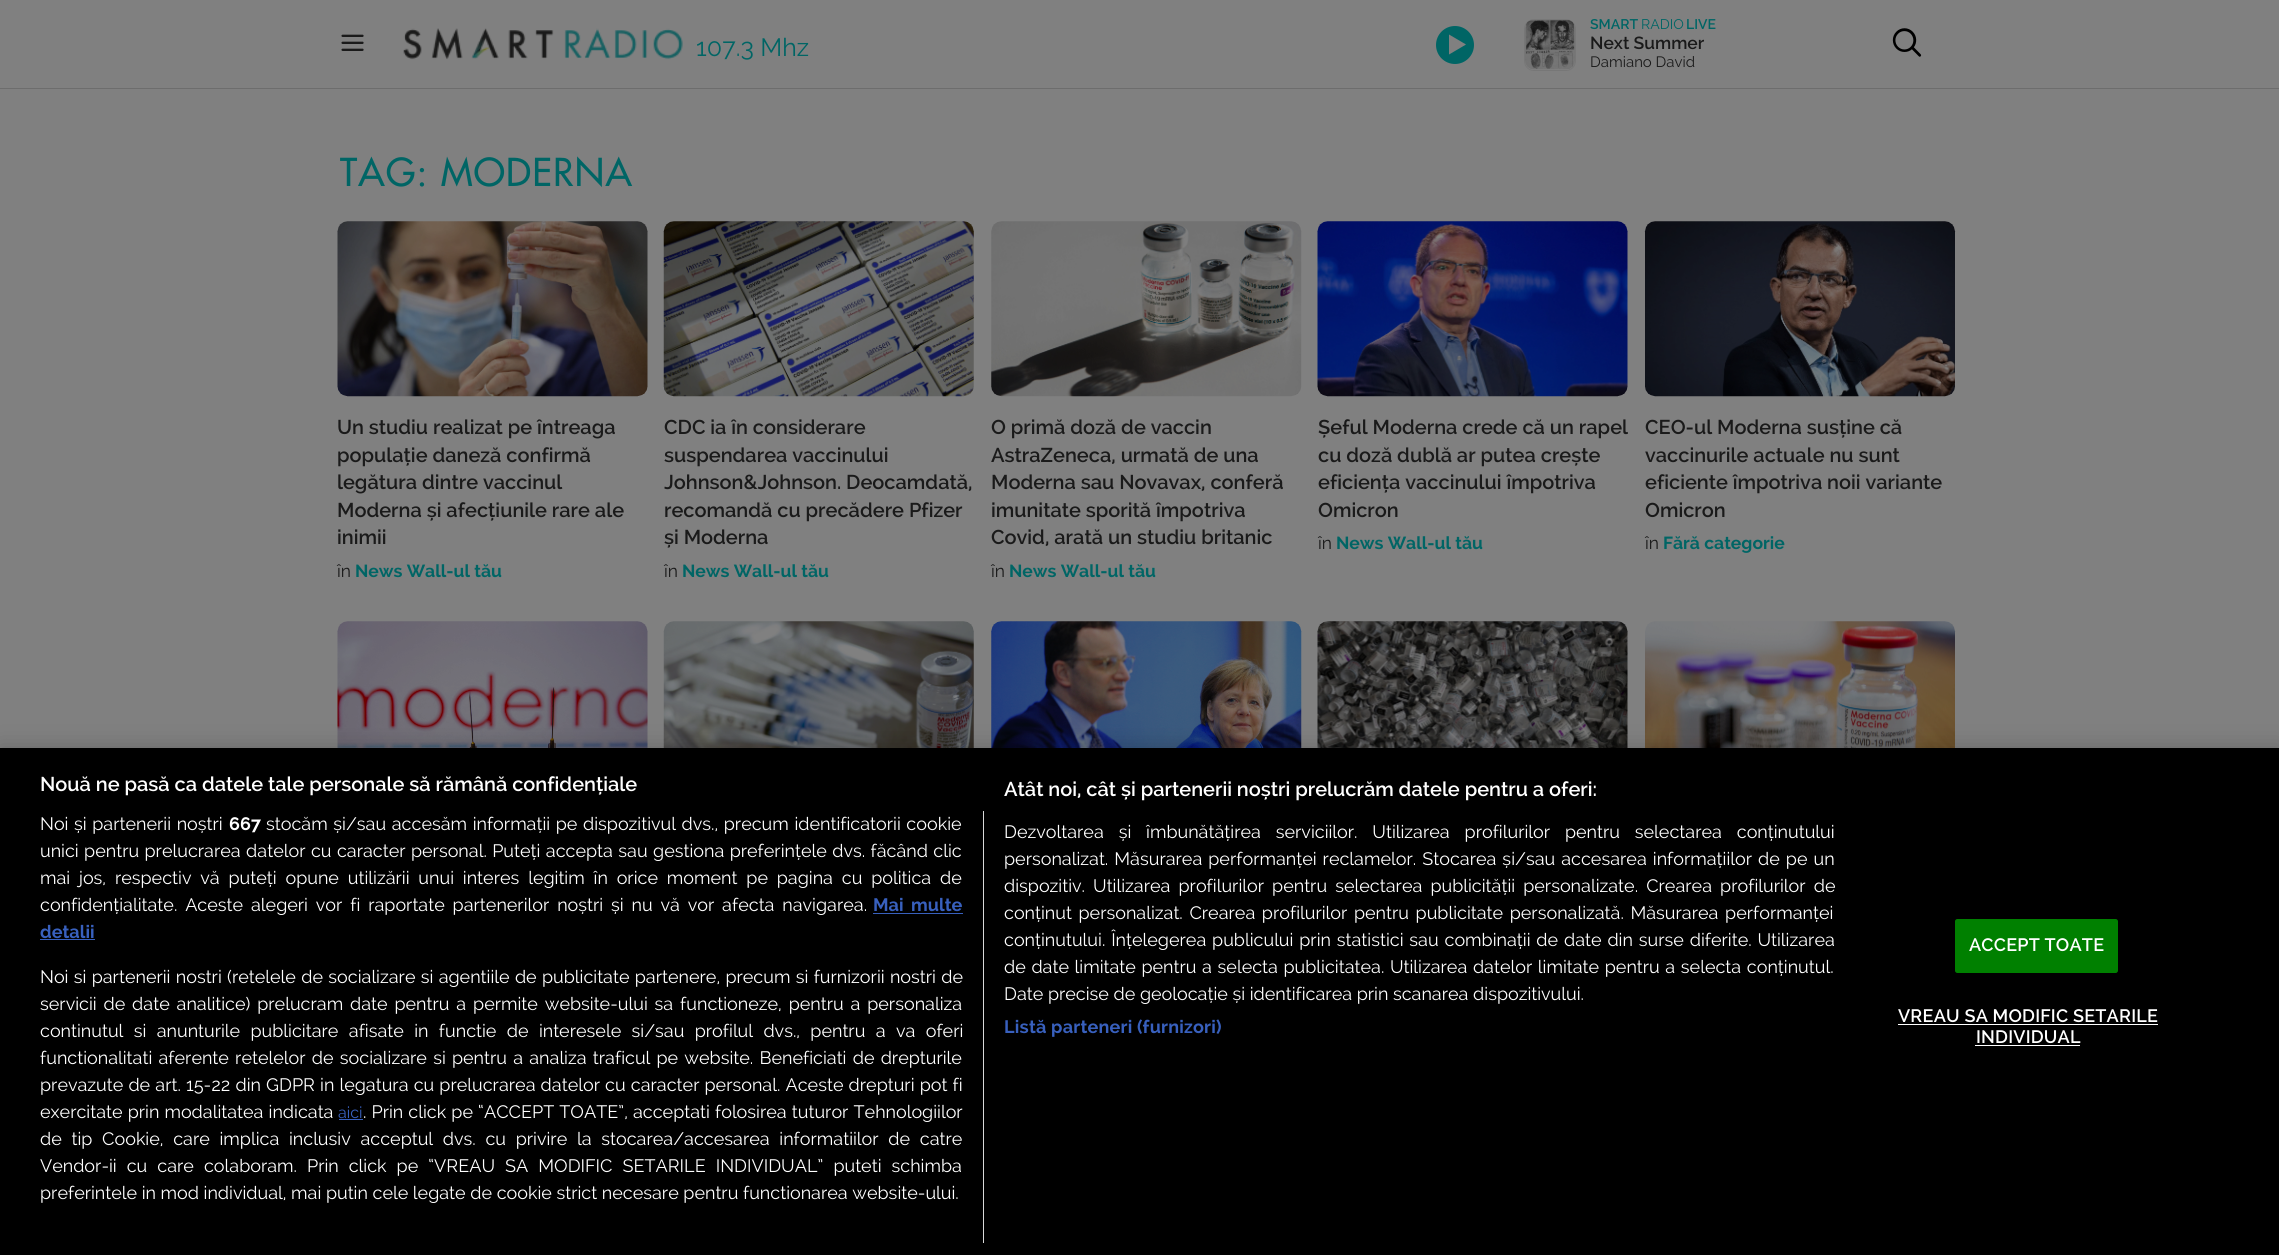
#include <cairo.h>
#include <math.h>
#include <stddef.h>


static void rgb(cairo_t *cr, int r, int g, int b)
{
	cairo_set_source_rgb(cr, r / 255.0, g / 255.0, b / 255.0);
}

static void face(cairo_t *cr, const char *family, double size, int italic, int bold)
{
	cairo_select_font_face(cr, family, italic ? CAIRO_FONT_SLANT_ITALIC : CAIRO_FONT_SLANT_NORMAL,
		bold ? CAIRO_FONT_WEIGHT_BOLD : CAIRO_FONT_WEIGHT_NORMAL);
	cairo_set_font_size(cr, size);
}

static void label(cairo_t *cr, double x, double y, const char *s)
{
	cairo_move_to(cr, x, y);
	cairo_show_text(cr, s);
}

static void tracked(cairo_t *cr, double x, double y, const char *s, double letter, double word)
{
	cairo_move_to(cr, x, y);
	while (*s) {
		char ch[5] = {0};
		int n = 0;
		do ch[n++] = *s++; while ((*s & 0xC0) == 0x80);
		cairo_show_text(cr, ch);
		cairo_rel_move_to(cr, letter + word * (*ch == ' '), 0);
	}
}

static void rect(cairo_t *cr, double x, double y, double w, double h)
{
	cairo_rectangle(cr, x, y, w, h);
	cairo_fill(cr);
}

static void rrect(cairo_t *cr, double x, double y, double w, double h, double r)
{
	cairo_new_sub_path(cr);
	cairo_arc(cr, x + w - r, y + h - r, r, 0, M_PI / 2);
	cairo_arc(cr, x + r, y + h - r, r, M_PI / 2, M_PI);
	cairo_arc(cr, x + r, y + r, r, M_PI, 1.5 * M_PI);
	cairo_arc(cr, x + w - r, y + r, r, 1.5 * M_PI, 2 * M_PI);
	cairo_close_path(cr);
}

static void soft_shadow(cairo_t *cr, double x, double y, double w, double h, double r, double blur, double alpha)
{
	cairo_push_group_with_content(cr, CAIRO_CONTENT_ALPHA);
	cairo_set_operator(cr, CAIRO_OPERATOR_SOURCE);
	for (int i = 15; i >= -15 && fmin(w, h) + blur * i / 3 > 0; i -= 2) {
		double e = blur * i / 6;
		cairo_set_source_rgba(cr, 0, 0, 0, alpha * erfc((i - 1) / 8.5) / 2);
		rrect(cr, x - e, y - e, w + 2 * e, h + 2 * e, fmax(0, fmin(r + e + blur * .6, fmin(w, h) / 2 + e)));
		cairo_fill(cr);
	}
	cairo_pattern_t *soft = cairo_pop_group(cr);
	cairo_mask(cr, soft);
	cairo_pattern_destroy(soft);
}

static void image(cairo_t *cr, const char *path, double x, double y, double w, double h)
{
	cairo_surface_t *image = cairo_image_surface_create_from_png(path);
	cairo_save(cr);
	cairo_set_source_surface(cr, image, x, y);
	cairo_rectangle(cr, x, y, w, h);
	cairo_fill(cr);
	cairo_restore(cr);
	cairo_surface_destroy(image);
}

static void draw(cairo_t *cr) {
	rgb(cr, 128, 128, 128);
	cairo_paint(cr);
	rgb(cr, 109, 109, 109);
	rect(cr, 0, 88, 2279, 1);
	image(cr, "image0.png", 341, 34, 23, 17);
	image(cr, "image1.png", 403, 28, 280, 32);
	face(cr, "Raleway", 25, 0, 0);
	rgb(cr, 0, 101, 101);
	label(cr, 696, 56, "107.3 Mhz");
	cairo_new_path(cr);
	cairo_arc(cr, 1455, 45, 19, 0, 2 * M_PI);
	cairo_fill(cr);
	rgb(cr, 128, 128, 128);
	cairo_new_path(cr);
	cairo_move_to(cr, 1466, 44.5);
	cairo_line_to(cr, 1449, 34.5);
	cairo_line_to(cr, 1449, 54.5);
	cairo_close_path(cr);
	cairo_fill(cr);
	rrect(cr, 1524.5, 19.5, 51, 51, 9.5);
	rgb(cr, 119, 119, 119);
	cairo_set_line_width(cr, 1);
	cairo_stroke(cr);
	image(cr, "image2.png", 1525, 20, 50, 50);
	face(cr, "Raleway SemiBold", 14, 0, 0);
	rgb(cr, 0, 101, 101);
	label(cr, 1590, 29, "SMART");
	face(cr, "Raleway", 14, 0, 0);
	label(cr, 1641, 29, "RADIO");
	face(cr, "Raleway SemiBold", 14, 0, 0);
	label(cr, 1686, 29, "LIVE");
	face(cr, "Raleway SemiBold", 17.5, 0, 0);
	rgb(cr, 26, 26, 26);
	label(cr, 1590, 49, "Next Summer");
	face(cr, "Raleway", 15, 0, 0);
	label(cr, 1590, 67, "Damiano David");
	image(cr, "image3.png", 1892, 28, 30, 29);
	face(cr, "Futura Medium", 37.5, 0, 0);
	rgb(cr, 0, 101, 101);
	tracked(cr, 340, 186, "TAG: MODERNA", 1.25, 0);
	image(cr, "image4.png", 337, 221, 311, 176);
	face(cr, "Raleway SemiBold", 20, 0, 0);
	rgb(cr, 26, 26, 26);
	label(cr, 337, 434, "Un studiu realizat pe întreaga");
	label(cr, 337, 462, "populație daneză confirmă");
	label(cr, 337, 489, "legătura dintre vaccinul");
	label(cr, 337, 517, "Moderna și afecțiunile rare ale");
	label(cr, 337, 544, "inimii");
	face(cr, "Raleway", 17.5, 0, 0);
	label(cr, 337, 577, "în");
	face(cr, "Raleway", 17.5, 0, 1);
	rgb(cr, 0, 101, 101);
	label(cr, 355, 577, "News Wall-ul tău");
	image(cr, "image5.png", 663, 221, 311, 176);
	face(cr, "Raleway SemiBold", 20, 0, 0);
	rgb(cr, 26, 26, 26);
	label(cr, 664, 434, "CDC ia în considerare");
	label(cr, 664, 462, "suspendarea vaccinului");
	label(cr, 664, 489, "Johnson&Johnson. Deocamdată,");
	label(cr, 664, 517, "recomandă cu precădere Pfizer");
	label(cr, 664, 544, "și Moderna");
	face(cr, "Raleway", 17.5, 0, 0);
	label(cr, 664, 577, "în");
	face(cr, "Raleway", 17.5, 0, 1);
	rgb(cr, 0, 101, 101);
	label(cr, 682, 577, "News Wall-ul tău");
	image(cr, "image6.png", 991, 221, 311, 176);
	face(cr, "Raleway SemiBold", 20, 0, 0);
	rgb(cr, 26, 26, 26);
	label(cr, 991, 434, "O primă doză de vaccin");
	label(cr, 991, 462, "AstraZeneca, urmată de una");
	label(cr, 991, 489, "Moderna sau Novavax, conferă");
	label(cr, 991, 517, "imunitate sporită împotriva");
	label(cr, 991, 544, "Covid, arată un studiu britanic");
	face(cr, "Raleway", 17.5, 0, 0);
	label(cr, 991, 577, "în");
	face(cr, "Raleway", 17.5, 0, 1);
	rgb(cr, 0, 101, 101);
	label(cr, 1009, 577, "News Wall-ul tău");
	image(cr, "image7.png", 1317, 221, 311, 176);
	face(cr, "Raleway SemiBold", 20, 0, 0);
	rgb(cr, 26, 26, 26);
	label(cr, 1318, 434, "Șeful Moderna crede că un rapel");
	label(cr, 1318, 462, "cu doză dublă ar putea crește");
	label(cr, 1318, 489, "eficiența vaccinului împotriva");
	label(cr, 1318, 517, "Omicron");
	face(cr, "Raleway", 17.5, 0, 0);
	label(cr, 1318, 549, "în");
	face(cr, "Raleway", 17.5, 0, 1);
	rgb(cr, 0, 101, 101);
	label(cr, 1336, 549, "News Wall-ul tău");
	image(cr, "image8.png", 1644, 221, 312, 176);
	face(cr, "Raleway SemiBold", 20, 0, 0);
	rgb(cr, 26, 26, 26);
	label(cr, 1645, 434, "CEO-ul Moderna susține că");
	label(cr, 1645, 462, "vaccinurile actuale nu sunt");
	label(cr, 1645, 489, "eficiente împotriva noii variante");
	label(cr, 1645, 517, "Omicron");
	face(cr, "Raleway", 17.5, 0, 0);
	label(cr, 1645, 549, "în");
	face(cr, "Raleway", 17.5, 0, 1);
	rgb(cr, 0, 101, 101);
	label(cr, 1663, 549, "Fără categorie");
	image(cr, "image9.png", 337, 621, 311, 127);
	image(cr, "image10.png", 663, 621, 311, 127);
	image(cr, "image11.png", 991, 621, 311, 127);
	image(cr, "image12.png", 1317, 621, 311, 127);
	image(cr, "image13.png", 1645, 621, 311, 127);
	rgb(cr, 0, 0, 0);
	soft_shadow(cr, 0, 748, 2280, 507, 0, 11, 0.2);
	rgb(cr, 0, 0, 0);
	rect(cr, 0, 748, 2279, 507);
	face(cr, "Raleway SemiBold", 20, 0, 0);
	rgb(cr, 255, 255, 255);
	label(cr, 40, 791, "Nouă ne pasă ca datele tale personale să rămână confidențiale");
	label(cr, 1004, 796, "Atât noi, cât și partenerii noștri prelucrăm datele pentru a oferi:");
	face(cr, "Raleway", 18, 0, 0);
	tracked(cr, 1004, 838, "Dezvoltarea și îmbunătățirea serviciilor. Utilizarea profilurilor pentru selectarea conținutului", 0, 10.25);
	tracked(cr, 1004, 865, "personalizat. Măsurarea performanței reclamelor. Stocarea și/sau accesarea informațiilor de pe un", 0, 1.4);
	tracked(cr, 1004, 892, "dispozitiv. Utilizarea profilurilor pentru selectarea publicității personalizate. Crearea profilurilor de", 0, 3.5);
	tracked(cr, 1004, 919, "conținut personalizat. Crearea profilurilor pentru publicitate personalizată. Măsurarea performanței", 0, 2);
	tracked(cr, 1004, 946, "conținutului. Înțelegerea publicului prin statistici sau combinații de date din surse diferite. Utilizarea", 0, 1.25);
	tracked(cr, 1004, 973, "de date limitate pentru a selecta publicitatea. Utilizarea datelor limitate pentru a selecta conținutul.", 0, 1);
	label(cr, 1004, 1000, "Date precise de geolocație și identificarea prin scanarea dispozitivului.");
	face(cr, "Raleway", 18, 0, 1);
	rgb(cr, 56, 96, 190);
	tracked(cr, 1004, 1033, "Listă parteneri (furnizori)", 0.2, 0);
	rgb(cr, 216, 216, 216);
	rect(cr, 983, 811, 1, 432);
	face(cr, "Raleway", 18, 0, 0);
	rgb(cr, 255, 255, 255);
	tracked(cr, 40, 830, "Noi și partenerii noștri", 0, 1);
	face(cr, "Raleway", 18, 0, 1);
	label(cr, 229, 830, "667");
	face(cr, "Raleway", 18, 0, 0);
	tracked(cr, 266, 830, "stocăm și/sau accesăm informații pe dispozitivul dvs., precum identificatorii cookie", 0, 1);
	tracked(cr, 40, 857, "unici pentru prelucrarea datelor cu caracter personal. Puteți accepta sau gestiona preferințele dvs. făcând clic", 0, 0.8);
	tracked(cr, 40, 884, "mai jos, respectiv vă puteți opune utilizării unui interes legitim în orice moment pe pagina cu politica de", 0, 4.25);
	tracked(cr, 40, 911, "confidențialitate. Aceste alegeri vor fi raportate partenerilor noștri și nu vă vor afecta navigarea.", 0, 3.25);
	face(cr, "Raleway", 18, 0, 1);
	rgb(cr, 56, 96, 190);
	tracked(cr, 873, 911, "Mai multe", 0, 3.25);
	rect(cr, 873, 913, 90, 1);
	label(cr, 40, 938, "detalii");
	rect(cr, 40, 939, 55, 1);
	face(cr, "Raleway", 18, 0, 0);
	rgb(cr, 255, 255, 255);
	tracked(cr, 40, 983, "Noi si partenerii nostri (retelele de socializare si agentiile de publicitate partenere, precum si furnizorii nostri de", 0, 0.7);
	tracked(cr, 40, 1010, "servicii de date analitice) prelucram date pentru a permite website-ului sa functioneze, pentru a personaliza", 0, 2.25);
	tracked(cr, 40, 1037, "continutul si anunturile publicitare afisate in functie de interesele si/sau profilul dvs., pentru a va oferi", 0, 5.75);
	tracked(cr, 40, 1064, "functionalitati aferente retelelor de socializare si pentru a analiza traficul pe website. Beneficiati de drepturile", 0, 1.6);
	tracked(cr, 40, 1091, "prevazute de art. 15-22 din GDPR in legatura cu prelucrarea datelor cu caracter personal. Aceste drepturi pot fi", 0, 0.5);
	tracked(cr, 40, 1118, "exercitate prin modalitatea indicata", 0, 0.5);
	face(cr, "Raleway", 16, 0, 0);
	rgb(cr, 56, 96, 190);
	label(cr, 338, 1118, "aici");
	rect(cr, 339, 1119, 24, 1);
	face(cr, "Raleway", 18, 0, 0);
	rgb(cr, 255, 255, 255);
	tracked(cr, 363, 1118, ". Prin click pe “ACCEPT TOATE”, acceptati folosirea tuturor Tehnologiilor", 0, 0.5);
	tracked(cr, 40, 1145, "de tip Cookie, care implica inclusiv acceptul dvs. cu privire la stocarea/accesarea informatiilor de catre", 0, 5.1);
	tracked(cr, 40, 1172, "Vendor-ii cu care colaboram. Prin click pe “VREAU SA MODIFIC SETARILE INDIVIDUAL” puteti schimba", 0, 5.4);
	label(cr, 40, 1199, "preferintele in mod individual, mai putin cele legate de cookie strict necesare pentru functionarea website-ului.");
	rgb(cr, 0, 128, 0);
	rrect(cr, 1955.5, 919.5, 162, 53, 2);
	cairo_fill_preserve(cr);
	cairo_stroke(cr);
	face(cr, "Raleway SemiBold", 18, 0, 0);
	rgb(cr, 255, 255, 255);
	tracked(cr, 1969, 951, "ACCEPT TOATE", 0.2, 0);
	tracked(cr, 1898, 1022, "VREAU SA MODIFIC SETARILE", 0.2, 0);
	rect(cr, 1898, 1024, 260, 1);
	tracked(cr, 1976, 1043, "INDIVIDUAL", 0.2, 0);
	rect(cr, 1975, 1045, 105, 1);
}

int main(void) {
	cairo_surface_t *surface = cairo_image_surface_create(CAIRO_FORMAT_RGB24, 2279, 1255);
	cairo_t *cr = cairo_create(surface);
	cairo_font_options_t *options = cairo_font_options_create();
	cairo_font_options_set_hint_metrics(options, CAIRO_HINT_METRICS_OFF);
	cairo_font_options_set_hint_style(options, CAIRO_HINT_STYLE_NONE);
	cairo_set_font_options(cr, options);
	cairo_set_miter_limit(cr, 4);
	draw(cr);
	cairo_surface_write_to_png(surface, "render.png");
	cairo_font_options_destroy(options);
	cairo_destroy(cr);
	cairo_surface_destroy(surface);
	return 0;
}
